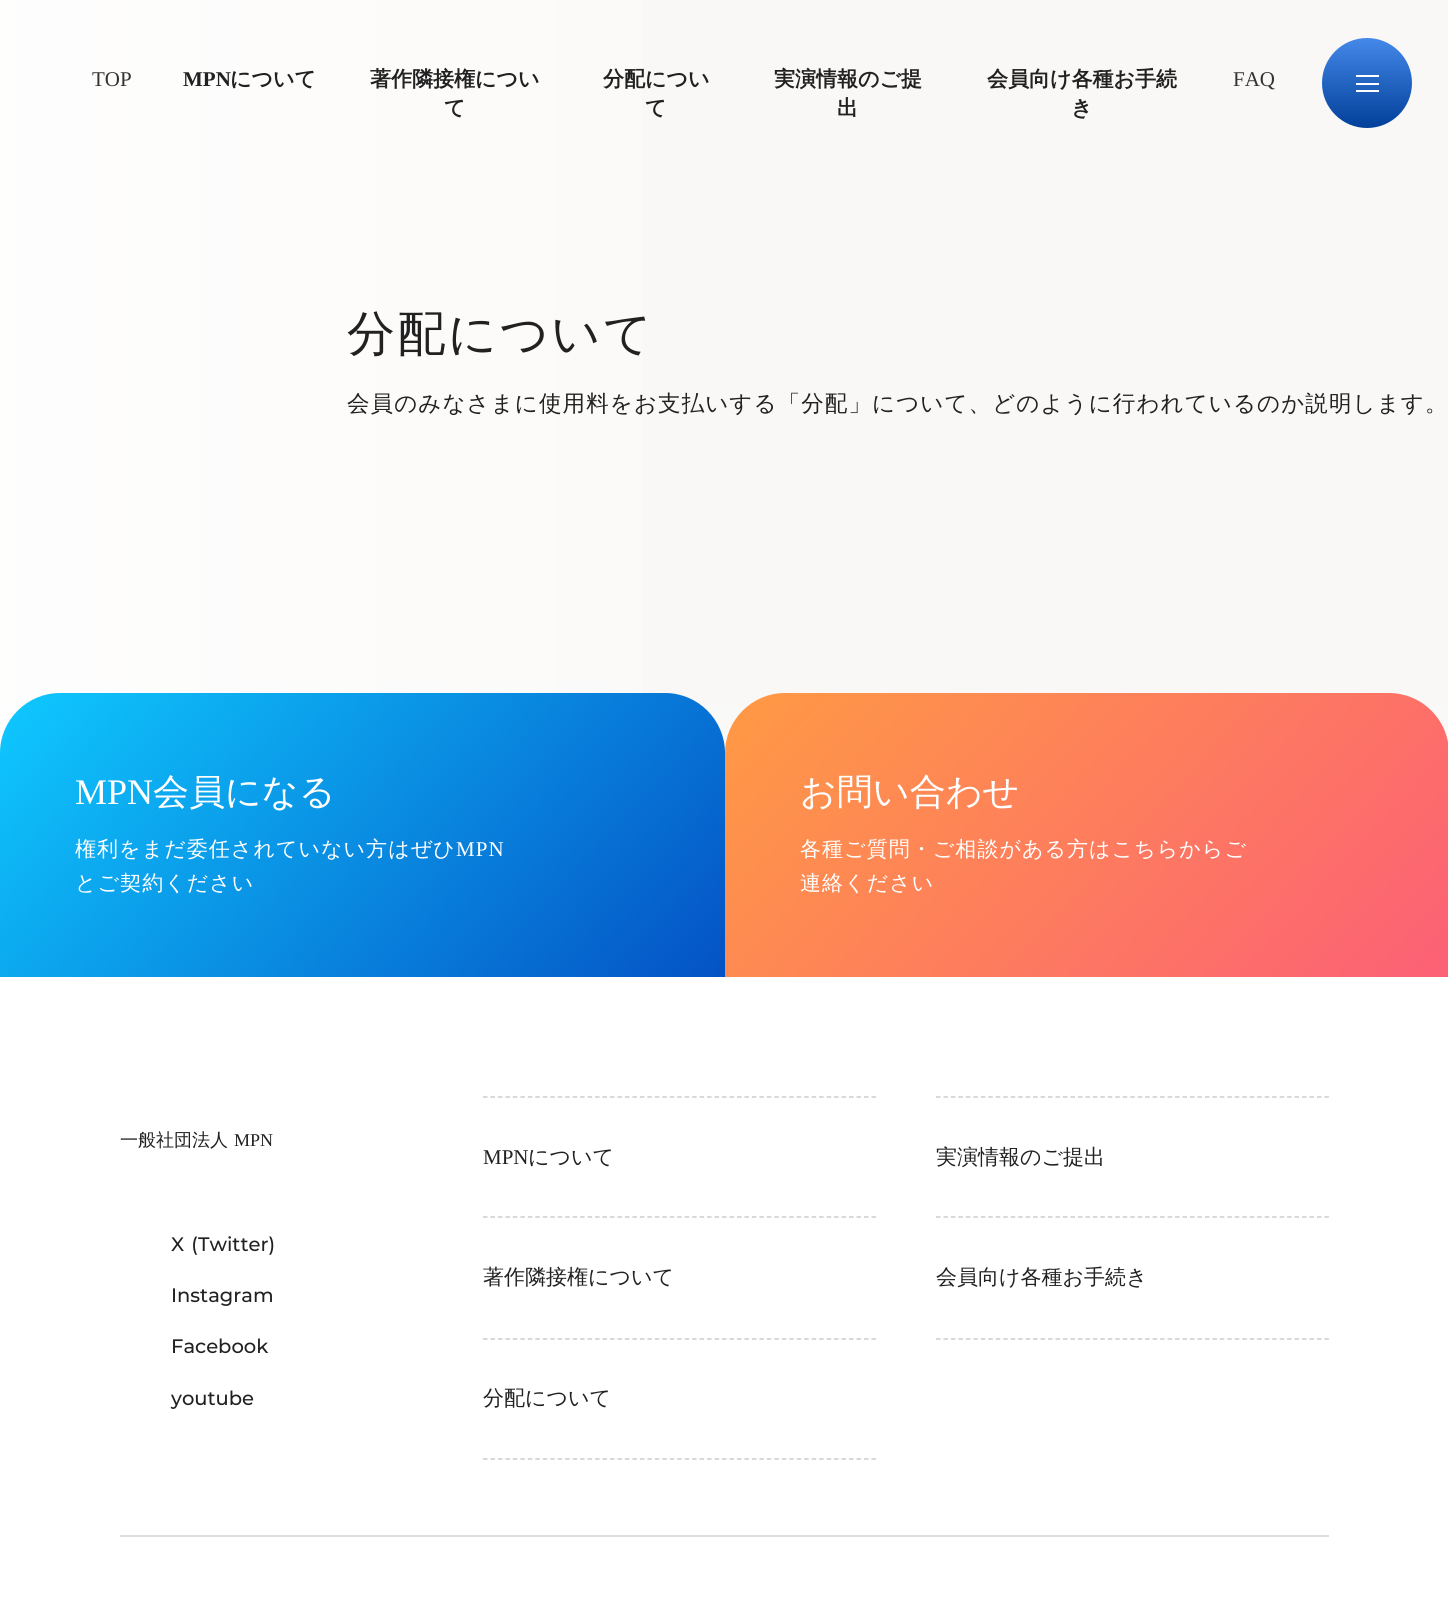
#include <cairo.h>
#include <math.h>
#include <stddef.h>


static void rgb(cairo_t *cr, int r, int g, int b)
{
	cairo_set_source_rgb(cr, r / 255.0, g / 255.0, b / 255.0);
}

static void face(cairo_t *cr, const char *family, double size, int italic, int bold)
{
	cairo_select_font_face(cr, family, italic ? CAIRO_FONT_SLANT_ITALIC : CAIRO_FONT_SLANT_NORMAL,
		bold ? CAIRO_FONT_WEIGHT_BOLD : CAIRO_FONT_WEIGHT_NORMAL);
	cairo_set_font_size(cr, size);
}

static void label(cairo_t *cr, double x, double y, const char *s)
{
	cairo_move_to(cr, x, y);
	cairo_show_text(cr, s);
}

static void tracked(cairo_t *cr, double x, double y, const char *s, double letter, double word)
{
	cairo_move_to(cr, x, y);
	while (*s) {
		char ch[5] = {0};
		int n = 0;
		do ch[n++] = *s++; while ((*s & 0xC0) == 0x80);
		cairo_show_text(cr, ch);
		cairo_rel_move_to(cr, letter + word * (*ch == ' '), 0);
	}
}

static void rect(cairo_t *cr, double x, double y, double w, double h)
{
	cairo_rectangle(cr, x, y, w, h);
	cairo_fill(cr);
}

static void draw(cairo_t *cr) {
	cairo_pattern_t *gradient;
	rgb(cr, 255, 255, 255);
	cairo_paint(cr);
	rgb(cr, 250, 248, 246);
	rect(cr, 0, 0, 1448, 683);
	gradient = cairo_pattern_create_linear(725, 977, 725, 683);
	cairo_pattern_add_color_stop_rgba(gradient, 0, 0.996, 0.996, 0.992, 1);
	cairo_pattern_add_color_stop_rgba(gradient, 0.99, 0.976, 0.973, 0.969, 1);
	cairo_set_source(cr, gradient);
	cairo_pattern_destroy(gradient);
	rect(cr, 0, 683, 1448, 70);
	gradient = cairo_pattern_create_linear(0, 488, 1014, 488);
	cairo_pattern_add_color_stop_rgba(gradient, 0, 1, 1, 1, 0.8);
	cairo_pattern_add_color_stop_rgba(gradient, 0.99, 1, 1, 1, 0);
	cairo_set_source(cr, gradient);
	cairo_pattern_destroy(gradient);
	rect(cr, 0, 0, 642, 753);
	face(cr, "Liberation Serif", 21, 0, 0);
	rgb(cr, 51, 51, 51);
	label(cr, 92, 86, "TOP");
	face(cr, "Liberation Serif", 21, 0, 1);
	rgb(cr, 33, 33, 33);
	label(cr, 183, 86, "MPN");
	face(cr, "WenQuanYi Zen Hei", 21, 0, 1);
	label(cr, 230, 86, "について");
	label(cr, 370, 86, "著作隣接権につい");
	label(cr, 444, 115, "て");
	label(cr, 603, 86, "分配につい");
	label(cr, 645, 115, "て");
	label(cr, 774, 86, "実演情報のご提");
	label(cr, 837, 115, "出");
	label(cr, 987, 86, "会員向け各種お手続");
	label(cr, 1071, 115, "き");
	face(cr, "Liberation Serif", 21, 0, 0);
	rgb(cr, 51, 51, 51);
	label(cr, 1233, 86, "FAQ");
	gradient = cairo_pattern_create_linear(1367, 37, 1367, 128);
	cairo_pattern_add_color_stop_rgba(gradient, 0, 0.271, 0.537, 0.918, 1);
	cairo_pattern_add_color_stop_rgba(gradient, 1, 0.004, 0.251, 0.6, 1);
	cairo_set_source(cr, gradient);
	cairo_pattern_destroy(gradient);
	cairo_new_path(cr);
	cairo_arc(cr, 1367, 83, 45, 0, 2 * M_PI);
	cairo_fill(cr);
	rgb(cr, 255, 255, 255);
	rect(cr, 1356, 75, 23, 2);
	rect(cr, 1356, 83, 23, 2);
	rect(cr, 1356, 90, 23, 2);
	face(cr, "WenQuanYi Zen Hei Medium", 48, 0, 0);
	rgb(cr, 33, 33, 33);
	tracked(cr, 347, 350, "分配について", 2.5, 0);
	face(cr, "WenQuanYi Zen Hei Medium", 22.5, 0, 0);
	tracked(cr, 347, 411, "会員のみなさまに使用料をお支払いする「分配」について、どのように行われているのか説明します。", 1.1, 0);
	gradient = cairo_pattern_create_linear(98, 588, 627, 1081);
	cairo_pattern_add_color_stop_rgba(gradient, 0, 0.059, 0.788, 1, 1);
	cairo_pattern_add_color_stop_rgba(gradient, 1, 0.016, 0.322, 0.773, 1);
	cairo_set_source(cr, gradient);
	cairo_pattern_destroy(gradient);
	cairo_new_path(cr);
	cairo_move_to(cr, 60, 693);
	cairo_line_to(cr, 665, 693);
	cairo_curve_to(cr, 698, 693, 725, 720, 725, 753);
	cairo_line_to(cr, 725, 977);
	cairo_line_to(cr, 0, 977);
	cairo_line_to(cr, 0, 753);
	cairo_curve_to(cr, 0, 720, 27, 693, 60, 693);
	cairo_close_path(cr);
	cairo_fill(cr);
	face(cr, "Liberation Serif", 36, 0, 0);
	rgb(cr, 255, 255, 255);
	label(cr, 75, 804, "MPN");
	face(cr, "WenQuanYi Zen Hei Medium", 36, 0, 0);
	label(cr, 153, 804, "会員になる");
	face(cr, "WenQuanYi Zen Hei Medium", 21, 0, 0);
	tracked(cr, 75, 856, "権利をまだ委任されていない方はぜひ", 1.05, 0);
	face(cr, "Liberation Serif", 21, 0, 0);
	tracked(cr, 456, 856, "MPN", 1.05, 0);
	face(cr, "WenQuanYi Zen Hei Medium", 21, 0, 0);
	tracked(cr, 75, 890, "とご契約ください", 1.05, 0);
	gradient = cairo_pattern_create_linear(822, 588, 1351, 1081);
	cairo_pattern_add_color_stop_rgba(gradient, 0, 1, 0.604, 0.267, 1);
	cairo_pattern_add_color_stop_rgba(gradient, 1, 0.988, 0.376, 0.463, 1);
	cairo_set_source(cr, gradient);
	cairo_pattern_destroy(gradient);
	cairo_new_path(cr);
	cairo_move_to(cr, 785, 693);
	cairo_line_to(cr, 1389, 693);
	cairo_curve_to(cr, 1422, 693, 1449, 720, 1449, 753);
	cairo_line_to(cr, 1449, 977);
	cairo_line_to(cr, 725, 977);
	cairo_line_to(cr, 725, 753);
	cairo_curve_to(cr, 725, 720, 752, 693, 785, 693);
	cairo_close_path(cr);
	cairo_fill(cr);
	face(cr, "WenQuanYi Zen Hei Medium", 36, 0, 0);
	rgb(cr, 255, 255, 255);
	label(cr, 800, 804, "お問い合わせ");
	face(cr, "WenQuanYi Zen Hei Medium", 21, 0, 0);
	tracked(cr, 800, 856, "各種ご質問・ご相談がある方はこちらからご", 1.05, 0);
	tracked(cr, 800, 890, "連絡ください", 1.05, 0);
	face(cr, "WenQuanYi Zen Hei Medium", 18, 0, 0);
	rgb(cr, 33, 33, 33);
	label(cr, 120, 1146, "一般社団法人");
	face(cr, "Liberation Serif", 18, 0, 0);
	label(cr, 234, 1146, "MPN");
	face(cr, "Montserrat Medium", 19.5, 0, 0);
	tracked(cr, 171, 1251, "X (Twitter)", 0, 2);
	label(cr, 171, 1302, "Instagram");
	label(cr, 171, 1353, "Facebook");
	label(cr, 171, 1405, "youtube");
	cairo_new_path(cr);
	cairo_move_to(cr, 483, 1097);
	cairo_line_to(cr, 876, 1097);
	rgb(cr, 205, 205, 205);
	cairo_set_line_width(cr, 1.5);
	cairo_set_dash(cr, (double[]){4.5, 2.97}, 2, 0);
	cairo_stroke(cr);
	cairo_new_path(cr);
	cairo_move_to(cr, 483, 1217);
	cairo_line_to(cr, 876, 1217);
	cairo_stroke(cr);
	face(cr, "Liberation Serif", 21, 0, 0);
	rgb(cr, 33, 33, 33);
	label(cr, 483, 1164, "MPN");
	face(cr, "WenQuanYi Zen Hei Medium", 21, 0, 0);
	label(cr, 528, 1164, "について");
	cairo_new_path(cr);
	cairo_move_to(cr, 483, 1339);
	cairo_line_to(cr, 876, 1339);
	rgb(cr, 205, 205, 205);
	cairo_stroke(cr);
	rgb(cr, 33, 33, 33);
	label(cr, 483, 1284, "著作隣接権について");
	cairo_new_path(cr);
	cairo_move_to(cr, 483, 1459);
	cairo_line_to(cr, 876, 1459);
	rgb(cr, 205, 205, 205);
	cairo_stroke(cr);
	rgb(cr, 33, 33, 33);
	label(cr, 483, 1405, "分配について");
	cairo_new_path(cr);
	cairo_move_to(cr, 936, 1097);
	cairo_line_to(cr, 1329, 1097);
	rgb(cr, 205, 205, 205);
	cairo_stroke(cr);
	cairo_new_path(cr);
	cairo_move_to(cr, 936, 1217);
	cairo_line_to(cr, 1329, 1217);
	cairo_stroke(cr);
	rgb(cr, 33, 33, 33);
	label(cr, 936, 1164, "実演情報のご提出");
	cairo_new_path(cr);
	cairo_move_to(cr, 936, 1339);
	cairo_line_to(cr, 1329, 1339);
	rgb(cr, 205, 205, 205);
	cairo_stroke(cr);
	rgb(cr, 33, 33, 33);
	label(cr, 936, 1284, "会員向け各種お手続き");
	rgb(cr, 221, 221, 221);
	rect(cr, 120, 1535, 1209, 2);
}

int main(void) {
	cairo_surface_t *surface = cairo_image_surface_create(CAIRO_FORMAT_RGB24, 1448, 1599);
	cairo_t *cr = cairo_create(surface);
	cairo_font_options_t *options = cairo_font_options_create();
	cairo_font_options_set_hint_metrics(options, CAIRO_HINT_METRICS_OFF);
	cairo_font_options_set_hint_style(options, CAIRO_HINT_STYLE_NONE);
	cairo_set_font_options(cr, options);
	cairo_set_miter_limit(cr, 4);
	draw(cr);
	cairo_surface_write_to_png(surface, "render.png");
	cairo_font_options_destroy(options);
	cairo_destroy(cr);
	cairo_surface_destroy(surface);
	return 0;
}
